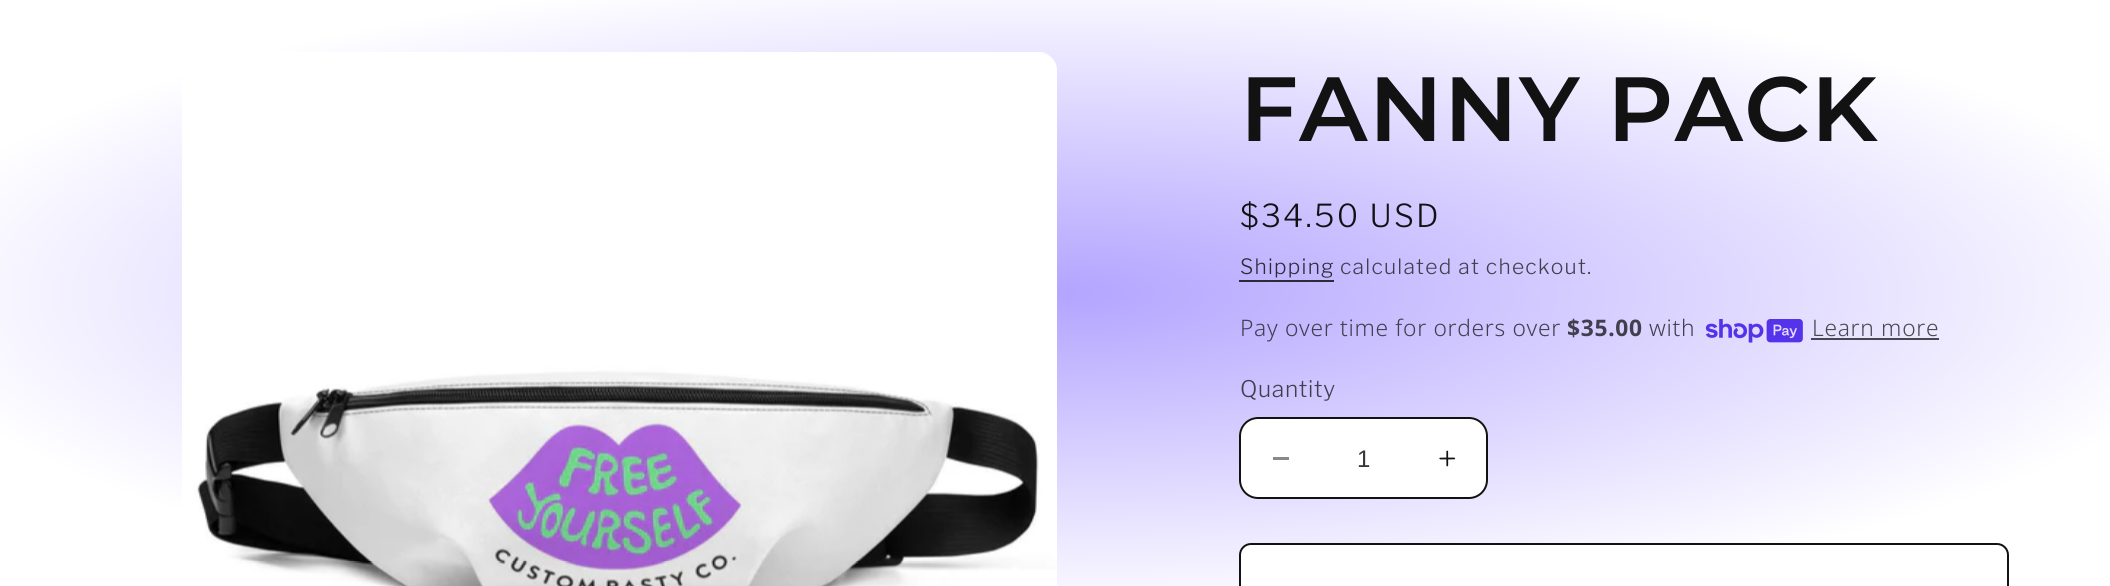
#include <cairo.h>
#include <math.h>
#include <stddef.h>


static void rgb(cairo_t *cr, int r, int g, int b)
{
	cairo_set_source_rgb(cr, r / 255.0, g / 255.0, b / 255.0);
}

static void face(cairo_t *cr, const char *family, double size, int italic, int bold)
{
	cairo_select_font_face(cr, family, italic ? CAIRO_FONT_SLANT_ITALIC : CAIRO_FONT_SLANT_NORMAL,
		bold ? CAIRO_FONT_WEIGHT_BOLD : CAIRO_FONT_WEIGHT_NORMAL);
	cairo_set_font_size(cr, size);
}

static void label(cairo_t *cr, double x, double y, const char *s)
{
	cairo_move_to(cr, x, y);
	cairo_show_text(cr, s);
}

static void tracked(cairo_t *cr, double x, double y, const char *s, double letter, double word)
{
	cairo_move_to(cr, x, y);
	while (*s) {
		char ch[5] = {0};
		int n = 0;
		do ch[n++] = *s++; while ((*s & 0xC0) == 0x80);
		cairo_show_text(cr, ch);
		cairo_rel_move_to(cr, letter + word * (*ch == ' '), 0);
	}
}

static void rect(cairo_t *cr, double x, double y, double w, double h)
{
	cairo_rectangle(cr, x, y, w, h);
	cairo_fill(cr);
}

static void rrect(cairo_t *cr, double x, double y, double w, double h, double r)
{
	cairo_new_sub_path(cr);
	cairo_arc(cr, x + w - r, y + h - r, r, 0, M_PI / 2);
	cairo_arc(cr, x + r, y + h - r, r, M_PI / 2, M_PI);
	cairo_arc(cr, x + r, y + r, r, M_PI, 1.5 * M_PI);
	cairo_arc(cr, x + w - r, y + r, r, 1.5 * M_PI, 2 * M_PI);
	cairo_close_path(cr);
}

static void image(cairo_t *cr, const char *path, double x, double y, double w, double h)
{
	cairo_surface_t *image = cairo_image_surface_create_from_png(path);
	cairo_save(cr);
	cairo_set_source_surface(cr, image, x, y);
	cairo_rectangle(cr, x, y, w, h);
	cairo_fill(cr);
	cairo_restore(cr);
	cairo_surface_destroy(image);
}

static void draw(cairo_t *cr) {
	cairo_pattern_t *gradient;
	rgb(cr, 255, 255, 255);
	cairo_paint(cr);
	gradient = cairo_pattern_create_radial(0, 0, 0, 0, 0, 1);
	cairo_pattern_set_matrix(gradient, &(cairo_matrix_t){1.0 / 1492, 0, 0, 1.0 / 415, -1.0 * 1055 / 1492, -1.0 * 293 / 415});
	cairo_pattern_add_color_stop_rgba(gradient, 0, 0.702, 0.643, 1, 1);
	cairo_pattern_add_color_stop_rgba(gradient, 0.79, 1, 1, 1, 1);
	cairo_pattern_add_color_stop_rgba(gradient, 0.97, 1, 1, 1, 1);
	cairo_set_source(cr, gradient);
	cairo_pattern_destroy(gradient);
	rect(cr, 0, 0, 2110, 586);
	gradient = cairo_pattern_create_radial(0, 0, 0, 0, 0, 1);
	cairo_pattern_set_matrix(gradient, &(cairo_matrix_t){1.0 / 1492, 0, 0, 1.0 / 415, -1.0 * 1055 / 1492, -1.0 * 293 / 415});
	cairo_pattern_add_color_stop_rgba(gradient, 0, 0.227, 0.216, 0.302, 1);
	cairo_pattern_add_color_stop_rgba(gradient, 0.79, 0.302, 0.302, 0.302, 1);
	cairo_pattern_add_color_stop_rgba(gradient, 0.97, 0.302, 0.302, 0.302, 1);
	cairo_set_source(cr, gradient);
	cairo_pattern_destroy(gradient);
	rect(cr, 1811, 338, 128, 2);
	gradient = cairo_pattern_create_radial(0, 0, 0, 0, 0, 1);
	cairo_pattern_set_matrix(gradient, &(cairo_matrix_t){1.0 / 1492, 0, 0, 1.0 / 415, -1.0 * 1055 / 1492, -1.0 * 293 / 415});
	cairo_pattern_add_color_stop_rgba(gradient, 0, 0.165, 0.157, 0.212, 1);
	cairo_pattern_add_color_stop_rgba(gradient, 0.79, 0.212, 0.212, 0.212, 1);
	cairo_pattern_add_color_stop_rgba(gradient, 0.97, 0.212, 0.212, 0.212, 1);
	cairo_set_source(cr, gradient);
	cairo_pattern_destroy(gradient);
	rect(cr, 1239, 280, 95, 2);
	image(cr, "image0.png", 182, 52, 875, 534);
	face(cr, "Montserrat SemiBold", 91, 0, 0);
	rgb(cr, 18, 18, 18);
	tracked(cr, 1240, 141, "FANNY PACK", 1.4, 0);
	face(cr, "Libre Franklin Light", 31.5, 0, 0);
	tracked(cr, 1240, 227, "$34.50 USD", 2.25, 0);
	face(cr, "Libre Franklin Light", 21, 0, 0);
	rgb(cr, 45, 43, 54);
	tracked(cr, 1240, 274, "Shipping", 1.25, 0);
	rgb(cr, 65, 63, 77);
	tracked(cr, 1340, 274, "calculated at checkout.", 1.25, 0);
	face(cr, "Noto Sans Light", 22.75, 0, 0);
	tracked(cr, 1240, 336, "Pay over time for orders over", 0.7, 0);
	face(cr, "Noto Sans", 22.75, 0, 1);
	tracked(cr, 1567, 336, "$35.00", 0.7, 0);
	face(cr, "Noto Sans Light", 22.75, 0, 0);
	tracked(cr, 1649, 336, "with", 0.7, 0);
	image(cr, "image1.png", 1705, 319, 98, 24);
	rgb(cr, 72, 71, 77);
	tracked(cr, 1812, 336, "Learn more", 0.7, 0);
	face(cr, "Libre Franklin Light", 22.75, 0, 0);
	rgb(cr, 65, 63, 77);
	tracked(cr, 1240, 397, "Quantity", 0.7, 0);
	rgb(cr, 255, 255, 255);
	rrect(cr, 1239, 417, 249, 82, 19);
	cairo_fill(cr);
	rgb(cr, 137, 137, 137);
	rect(cr, 1273, 457, 16, 3);
	image(cr, "image2.png", 1439, 450, 17, 17);
	rrect(cr, 1240, 418, 247, 80, 18);
	rgb(cr, 18, 18, 18);
	cairo_stroke(cr);
	face(cr, "Liberation Sans", 24, 0, 0);
	rgb(cr, 54, 54, 54);
	label(cr, 1357, 467, "1");
	rgb(cr, 255, 255, 255);
	rrect(cr, 1240, 544, 768, 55, 11);
	cairo_fill_preserve(cr);
	cairo_stroke(cr);
	rrect(cr, 1240, 544, 768, 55, 11);
	rgb(cr, 18, 18, 18);
	cairo_stroke(cr);
}

int main(void) {
	cairo_surface_t *surface = cairo_image_surface_create(CAIRO_FORMAT_RGB24, 2110, 586);
	cairo_t *cr = cairo_create(surface);
	cairo_font_options_t *options = cairo_font_options_create();
	cairo_font_options_set_hint_metrics(options, CAIRO_HINT_METRICS_OFF);
	cairo_font_options_set_hint_style(options, CAIRO_HINT_STYLE_NONE);
	cairo_set_font_options(cr, options);
	cairo_set_miter_limit(cr, 4);
	draw(cr);
	cairo_surface_write_to_png(surface, "render.png");
	cairo_font_options_destroy(options);
	cairo_destroy(cr);
	cairo_surface_destroy(surface);
	return 0;
}
